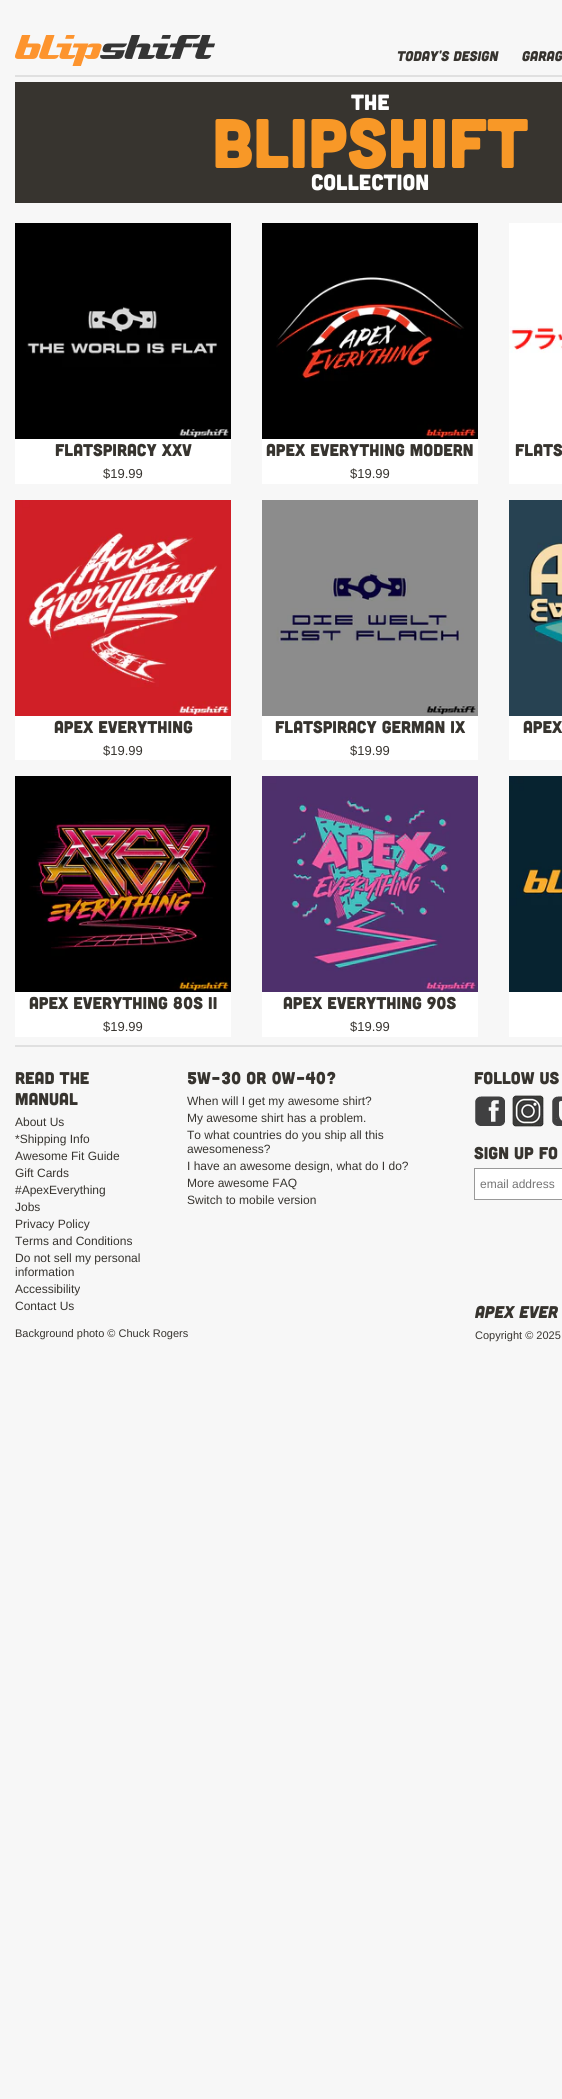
#include <cairo.h>
#include <math.h>
#include <stddef.h>


static void rgb(cairo_t *cr, int r, int g, int b)
{
	cairo_set_source_rgb(cr, r / 255.0, g / 255.0, b / 255.0);
}

static void face(cairo_t *cr, const char *family, double size, int italic, int bold)
{
	cairo_select_font_face(cr, family, italic ? CAIRO_FONT_SLANT_ITALIC : CAIRO_FONT_SLANT_NORMAL,
		bold ? CAIRO_FONT_WEIGHT_BOLD : CAIRO_FONT_WEIGHT_NORMAL);
	cairo_set_font_size(cr, size);
}

static void label(cairo_t *cr, double x, double y, const char *s)
{
	cairo_move_to(cr, x, y);
	cairo_show_text(cr, s);
}

static void rect(cairo_t *cr, double x, double y, double w, double h)
{
	cairo_rectangle(cr, x, y, w, h);
	cairo_fill(cr);
}

static void image(cairo_t *cr, const char *path, double x, double y, double w, double h)
{
	cairo_surface_t *image = cairo_image_surface_create_from_png(path);
	cairo_save(cr);
	cairo_set_source_surface(cr, image, x, y);
	cairo_rectangle(cr, x, y, w, h);
	cairo_fill(cr);
	cairo_restore(cr);
	cairo_surface_destroy(image);
}

static void draw(cairo_t *cr) {
	rgb(cr, 247, 247, 247);
	cairo_paint(cr);
	image(cr, "image0.png", 15, 35, 200, 31);
	face(cr, "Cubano", 14, 1, 0);
	rgb(cr, 55, 52, 47);
	label(cr, 397, 61, "Today's Design");
	label(cr, 522, 61, "Garag");
	rgb(cr, 224, 224, 224);
	rect(cr, 15, 75, 547, 2);
	rgb(cr, 55, 52, 47);
	rect(cr, 15, 82, 547, 121);
	face(cr, "Cubano", 22, 0, 0);
	rgb(cr, 255, 255, 255);
	label(cr, 351, 110, "The");
	face(cr, "Cubano", 70, 0, 0);
	rgb(cr, 248, 152, 39);
	label(cr, 212, 168, "blipshift");
	face(cr, "Cubano", 22, 0, 0);
	rgb(cr, 255, 255, 255);
	label(cr, 311, 190, "Collection");
	rect(cr, 15, 439, 216, 45);
	image(cr, "image1.png", 15, 223, 216, 216);
	face(cr, "Cubano", 17, 0, 0);
	rgb(cr, 55, 52, 47);
	label(cr, 55, 456, "Flatspiracy XXV");
	face(cr, "Liberation Sans", 13, 0, 0);
	label(cr, 103, 478, "$19.99");
	rgb(cr, 255, 255, 255);
	rect(cr, 262, 439, 216, 45);
	image(cr, "image2.png", 262, 223, 216, 216);
	face(cr, "Cubano", 17, 0, 0);
	rgb(cr, 55, 52, 47);
	label(cr, 266, 456, "Apex Everything Modern");
	face(cr, "Liberation Sans", 13, 0, 0);
	label(cr, 350, 478, "$19.99");
	rgb(cr, 255, 255, 255);
	rect(cr, 509, 223, 53, 261);
	image(cr, "image3.png", 509, 326, 53, 27);
	face(cr, "Cubano", 17, 0, 0);
	rgb(cr, 55, 52, 47);
	label(cr, 515, 456, "Flats");
	rgb(cr, 255, 255, 255);
	rect(cr, 15, 716, 216, 44);
	image(cr, "image4.png", 15, 500, 216, 216);
	rgb(cr, 55, 52, 47);
	label(cr, 54, 733, "Apex Everything");
	face(cr, "Liberation Sans", 13, 0, 0);
	label(cr, 103, 755, "$19.99");
	rgb(cr, 255, 255, 255);
	rect(cr, 262, 716, 216, 44);
	image(cr, "image5.png", 262, 500, 216, 216);
	face(cr, "Cubano", 17, 0, 0);
	rgb(cr, 55, 52, 47);
	label(cr, 275, 733, "Flatspiracy German IX");
	face(cr, "Liberation Sans", 13, 0, 0);
	label(cr, 350, 755, "$19.99");
	rgb(cr, 255, 255, 255);
	rect(cr, 509, 716, 53, 44);
	image(cr, "image6.png", 509, 500, 53, 216);
	face(cr, "Cubano", 17, 0, 0);
	rgb(cr, 55, 52, 47);
	label(cr, 523, 733, "Apex");
	rgb(cr, 255, 255, 255);
	rect(cr, 15, 992, 216, 45);
	image(cr, "image7.png", 15, 776, 216, 216);
	rgb(cr, 55, 52, 47);
	label(cr, 29, 1009, "Apex Everything 80s II");
	face(cr, "Liberation Sans", 13, 0, 0);
	label(cr, 103, 1031, "$19.99");
	rgb(cr, 255, 255, 255);
	rect(cr, 262, 992, 216, 45);
	image(cr, "image8.png", 262, 776, 216, 216);
	face(cr, "Cubano", 17, 0, 0);
	rgb(cr, 55, 52, 47);
	label(cr, 283, 1009, "Apex Everything 90s");
	face(cr, "Liberation Sans", 13, 0, 0);
	label(cr, 350, 1031, "$19.99");
	rgb(cr, 255, 255, 255);
	rect(cr, 509, 992, 53, 45);
	image(cr, "image9.png", 509, 776, 53, 216);
	rgb(cr, 224, 224, 224);
	rect(cr, 15, 1045, 547, 2);
	face(cr, "Cubano", 17, 0, 0);
	rgb(cr, 55, 52, 47);
	label(cr, 15, 1084, "Read the");
	label(cr, 15, 1105, "Manual");
	face(cr, "Liberation Sans", 12, 0, 0);
	label(cr, 15, 1126, "About Us");
	label(cr, 15, 1143, "*Shipping Info");
	label(cr, 15, 1160, "Awesome Fit Guide");
	label(cr, 15, 1177, "Gift Cards");
	label(cr, 15, 1194, "#ApexEverything");
	label(cr, 15, 1211, "Jobs");
	label(cr, 15, 1228, "Privacy Policy");
	label(cr, 15, 1245, "Terms and Conditions");
	label(cr, 15, 1262, "Do not sell my personal");
	label(cr, 15, 1276, "information");
	label(cr, 15, 1293, "Accessibility");
	label(cr, 15, 1310, "Contact Us");
	face(cr, "Cubano", 17, 0, 0);
	label(cr, 187, 1084, "5W-30 or 0w-40?");
	face(cr, "Liberation Sans", 12, 0, 0);
	label(cr, 187, 1105, "When will I get my awesome shirt?");
	label(cr, 187, 1122, "My awesome shirt has a problem.");
	label(cr, 187, 1139, "To what countries do you ship all this");
	label(cr, 187, 1153, "awesomeness?");
	label(cr, 187, 1170, "I have an awesome design, what do I do?");
	label(cr, 187, 1187, "More awesome FAQ");
	label(cr, 187, 1204, "Switch to mobile version");
	face(cr, "Cubano", 17, 0, 0);
	label(cr, 474, 1084, "Follow Us");
	image(cr, "image10.png", 475, 1096, 30, 30);
	image(cr, "image11.png", 512, 1095, 32, 32);
	image(cr, "image12.png", 552, 1096, 10, 30);
	label(cr, 474, 1159, "Sign up fo");
	rgb(cr, 255, 255, 255);
	cairo_rectangle(cr, 474.5, 1168.5, 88, 31);
	cairo_fill_preserve(cr);
	rgb(cr, 153, 153, 153);
	cairo_set_line_width(cr, 1);
	cairo_stroke(cr);
	face(cr, "Liberation Sans", 12, 0, 0);
	rgb(cr, 117, 117, 117);
	label(cr, 480, 1188, "email address");
	face(cr, "Liberation Sans", 11, 0, 0);
	rgb(cr, 55, 52, 47);
	label(cr, 15, 1337, "Background photo © Chuck Rogers");
	face(cr, "Cubano", 17, 1, 0);
	label(cr, 475, 1318, "Apex Ever");
	face(cr, "Liberation Sans", 11, 0, 0);
	label(cr, 475, 1339, "Copyright © 2025");
}

int main(void) {
	cairo_surface_t *surface = cairo_image_surface_create(CAIRO_FORMAT_RGB24, 562, 2099);
	cairo_t *cr = cairo_create(surface);
	cairo_font_options_t *options = cairo_font_options_create();
	cairo_font_options_set_hint_metrics(options, CAIRO_HINT_METRICS_OFF);
	cairo_font_options_set_hint_style(options, CAIRO_HINT_STYLE_NONE);
	cairo_set_font_options(cr, options);
	cairo_set_miter_limit(cr, 4);
	draw(cr);
	cairo_surface_write_to_png(surface, "render.png");
	cairo_font_options_destroy(options);
	cairo_destroy(cr);
	cairo_surface_destroy(surface);
	return 0;
}
